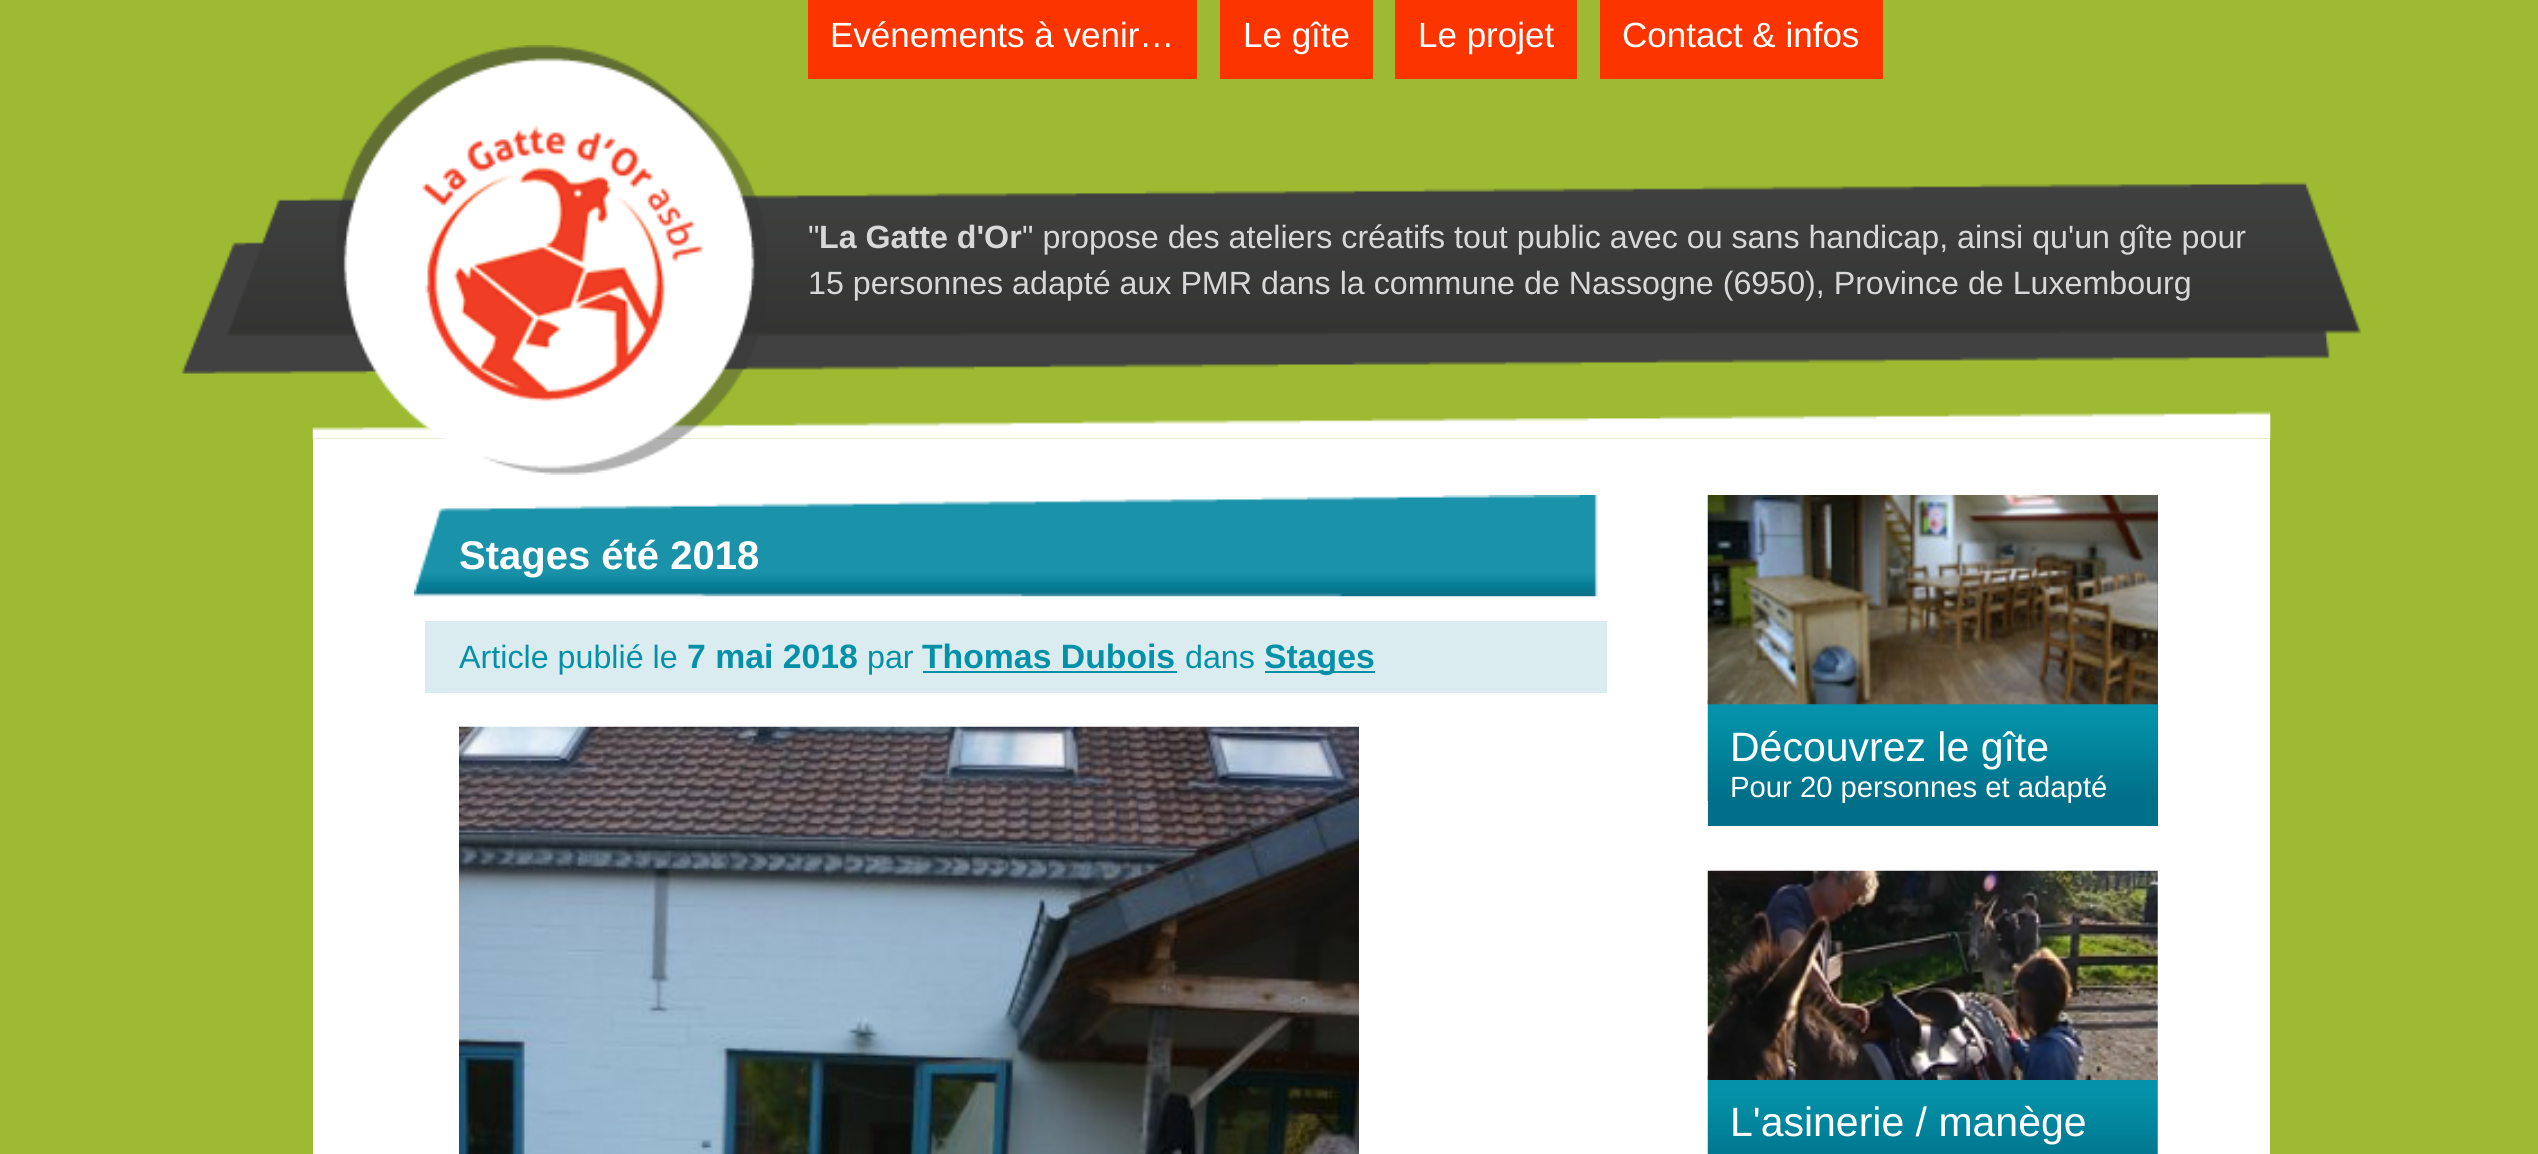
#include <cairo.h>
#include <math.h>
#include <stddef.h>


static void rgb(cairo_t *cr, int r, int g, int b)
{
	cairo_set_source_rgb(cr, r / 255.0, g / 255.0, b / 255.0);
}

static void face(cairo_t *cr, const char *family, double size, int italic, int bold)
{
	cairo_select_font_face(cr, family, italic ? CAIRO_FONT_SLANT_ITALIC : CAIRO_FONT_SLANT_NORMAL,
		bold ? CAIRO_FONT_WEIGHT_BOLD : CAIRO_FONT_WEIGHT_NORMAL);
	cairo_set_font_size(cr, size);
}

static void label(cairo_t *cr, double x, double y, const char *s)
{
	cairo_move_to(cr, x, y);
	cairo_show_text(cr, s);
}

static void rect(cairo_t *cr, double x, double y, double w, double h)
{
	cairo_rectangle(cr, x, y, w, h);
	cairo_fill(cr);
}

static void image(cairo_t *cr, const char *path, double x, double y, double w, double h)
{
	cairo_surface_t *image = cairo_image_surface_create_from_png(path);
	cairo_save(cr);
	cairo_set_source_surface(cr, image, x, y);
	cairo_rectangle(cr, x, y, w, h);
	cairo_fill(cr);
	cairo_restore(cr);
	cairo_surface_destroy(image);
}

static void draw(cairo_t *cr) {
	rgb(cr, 157, 186, 50);
	cairo_paint(cr);
	rgb(cr, 252, 53, 0);
	rect(cr, 808, 0, 389, 79);
	face(cr, "Liberation Sans", 35, 0, 0);
	rgb(cr, 255, 255, 255);
	label(cr, 830, 47, "Evénements à venir…");
	rgb(cr, 252, 53, 0);
	rect(cr, 1220, 0, 153, 79);
	rgb(cr, 255, 255, 255);
	label(cr, 1243, 47, "Le gîte");
	rgb(cr, 252, 53, 0);
	rect(cr, 1395, 0, 182, 79);
	rgb(cr, 255, 255, 255);
	label(cr, 1418, 47, "Le projet");
	rgb(cr, 252, 53, 0);
	rect(cr, 1600, 0, 283, 79);
	rgb(cr, 255, 255, 255);
	label(cr, 1622, 47, "Contact & infos");
	image(cr, "image2.png", 181, 181, 2180, 193);
	image(cr, "image3.png", 312, 411, 1959, 28);
	rect(cr, 313, 439, 1957, 715);
	image(cr, "image0.png", 336, 45, 430, 430);
	image(cr, "image1.png", 422, 125, 281, 277);
	face(cr, "Liberation Sans", 32.2, 0, 0);
	rgb(cr, 216, 216, 216);
	label(cr, 808, 248, "\"");
	face(cr, "Liberation Sans", 32.2, 0, 1);
	label(cr, 819, 248, "La Gatte d'Or");
	face(cr, "Liberation Sans", 32.2, 0, 0);
	label(cr, 1022, 248, "\" propose des ateliers créatifs tout public avec ou sans handicap, ainsi qu'un gîte pour");
	label(cr, 808, 294, "15 personnes adapté aux PMR dans la commune de Nassogne (6950), Province de Luxembourg");
	image(cr, "image4.png", 414, 495, 1184, 102);
	face(cr, "Liberation Sans", 40, 0, 1);
	rgb(cr, 255, 255, 255);
	label(cr, 459, 569, "Stages été 2018");
	rgb(cr, 218, 236, 239);
	rect(cr, 425, 621, 1182, 72);
	face(cr, "Liberation Sans", 32.25, 0, 0);
	rgb(cr, 4, 145, 168);
	label(cr, 459, 668, "Article publié le");
	face(cr, "Liberation Sans", 33.75, 0, 1);
	label(cr, 687, 668, "7 mai 2018");
	face(cr, "Liberation Sans", 32.25, 0, 0);
	label(cr, 867, 668, "par");
	face(cr, "Liberation Sans", 33.75, 0, 1);
	label(cr, 922, 668, "Thomas Dubois");
	rect(cr, 923, 671, 254, 2);
	face(cr, "Liberation Sans", 32.25, 0, 0);
	label(cr, 1185, 668, "dans");
	rect(cr, 1265, 671, 110, 2);
	face(cr, "Liberation Sans", 33.75, 0, 1);
	label(cr, 1264, 668, "Stages");
	image(cr, "image5.png", 459, 726, 900, 428);
	rgb(cr, 0, 111, 136);
	rect(cr, 1708, 495, 450, 331);
	image(cr, "image6.png", 1707, 699, 451, 102);
	image(cr, "image7.png", 1707, 495, 451, 210);
	face(cr, "Liberation Sans", 41, 0, 0);
	rgb(cr, 255, 255, 255);
	label(cr, 1730, 761, "Découvrez le gîte");
	face(cr, "Liberation Sans", 29.25, 0, 0);
	label(cr, 1730, 797, "Pour 20 personnes et adapté");
	image(cr, "image8.png", 1707, 1075, 451, 79);
	image(cr, "image9.png", 1707, 870, 451, 210);
	face(cr, "Liberation Sans", 41, 0, 0);
	label(cr, 1730, 1136, "L'asinerie / manège");
}

int main(void) {
	cairo_surface_t *surface = cairo_image_surface_create(CAIRO_FORMAT_RGB24, 2538, 1154);
	cairo_t *cr = cairo_create(surface);
	cairo_font_options_t *options = cairo_font_options_create();
	cairo_font_options_set_hint_metrics(options, CAIRO_HINT_METRICS_OFF);
	cairo_font_options_set_hint_style(options, CAIRO_HINT_STYLE_NONE);
	cairo_set_font_options(cr, options);
	cairo_set_miter_limit(cr, 4);
	draw(cr);
	cairo_surface_write_to_png(surface, "render.png");
	cairo_font_options_destroy(options);
	cairo_destroy(cr);
	cairo_surface_destroy(surface);
	return 0;
}
